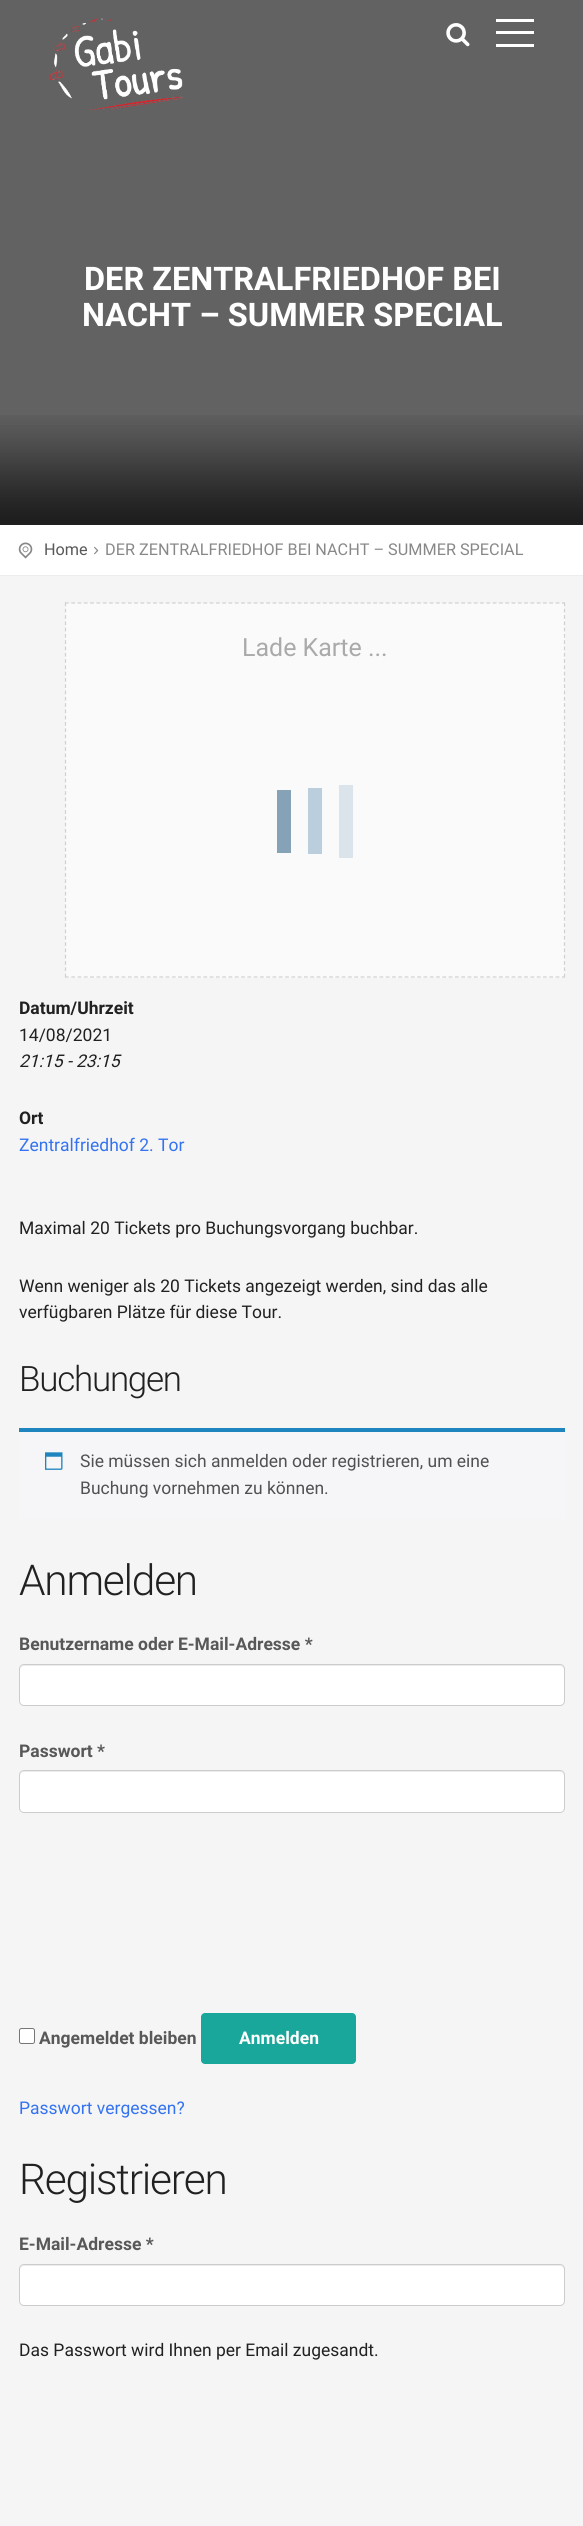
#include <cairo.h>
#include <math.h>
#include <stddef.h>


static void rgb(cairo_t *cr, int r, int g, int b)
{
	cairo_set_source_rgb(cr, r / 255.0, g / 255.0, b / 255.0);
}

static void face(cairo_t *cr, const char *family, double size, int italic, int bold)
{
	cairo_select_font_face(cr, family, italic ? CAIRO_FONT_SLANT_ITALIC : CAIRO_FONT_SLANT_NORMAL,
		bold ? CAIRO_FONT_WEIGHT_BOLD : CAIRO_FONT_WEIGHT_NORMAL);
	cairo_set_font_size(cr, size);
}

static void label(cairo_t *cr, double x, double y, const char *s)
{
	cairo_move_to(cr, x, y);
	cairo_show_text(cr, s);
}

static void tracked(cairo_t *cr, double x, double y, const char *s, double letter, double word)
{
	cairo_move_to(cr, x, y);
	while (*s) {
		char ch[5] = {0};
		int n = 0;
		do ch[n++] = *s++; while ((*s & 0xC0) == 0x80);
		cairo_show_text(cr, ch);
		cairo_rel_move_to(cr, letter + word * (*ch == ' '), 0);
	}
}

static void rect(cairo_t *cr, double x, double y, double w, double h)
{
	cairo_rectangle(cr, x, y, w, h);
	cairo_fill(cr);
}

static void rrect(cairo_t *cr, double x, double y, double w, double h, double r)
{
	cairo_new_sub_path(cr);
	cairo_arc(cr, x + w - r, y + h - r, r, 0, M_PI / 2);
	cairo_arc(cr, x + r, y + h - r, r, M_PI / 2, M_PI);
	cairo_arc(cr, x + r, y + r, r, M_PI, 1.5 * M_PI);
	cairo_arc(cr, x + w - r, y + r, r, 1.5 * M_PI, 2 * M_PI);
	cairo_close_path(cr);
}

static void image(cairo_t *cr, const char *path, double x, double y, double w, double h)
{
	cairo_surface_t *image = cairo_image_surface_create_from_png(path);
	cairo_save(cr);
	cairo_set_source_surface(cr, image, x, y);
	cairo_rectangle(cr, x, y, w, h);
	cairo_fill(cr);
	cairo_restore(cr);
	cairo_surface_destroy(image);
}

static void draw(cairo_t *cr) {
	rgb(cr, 245, 245, 245);
	cairo_paint(cr);
	rgb(cr, 98, 98, 98);
	rect(cr, 0, 0, 583, 525);
	image(cr, "image0.png", 50, 18, 133, 93);
	image(cr, "image1.png", 446, 23, 24, 24);
	rgb(cr, 255, 255, 255);
	rect(cr, 496, 31, 38, 3);
	rect(cr, 496, 19, 38, 3);
	rect(cr, 496, 44, 38, 3);
	image(cr, "image2.png", 0, 415, 583, 110);
	face(cr, "Roboto", 32.5, 0, 1);
	label(cr, 84, 290, "DER ZENTRALFRIEDHOF BEI");
	label(cr, 82, 326, "NACHT – SUMMER SPECIAL");
	rect(cr, 0, 525, 583, 50);
	rgb(cr, 237, 237, 237);
	rect(cr, 0, 575, 583, 1);
	image(cr, "image3.png", 18, 542, 15, 17);
	face(cr, "Roboto", 16.25, 0, 0);
	rgb(cr, 88, 88, 88);
	label(cr, 44, 555, "Home");
	image(cr, "image4.png", 94, 546, 5, 9);
	rgb(cr, 136, 136, 136);
	label(cr, 105, 555, "DER ZENTRALFRIEDHOF BEI NACHT – SUMMER SPECIAL");
	rgb(cr, 250, 250, 250);
	rect(cr, 65, 603, 500, 375);
	cairo_new_path(cr);
	cairo_move_to(cr, 65, 603);
	cairo_line_to(cr, 565, 603);
	rgb(cr, 208, 208, 208);
	cairo_set_line_width(cr, 1.2);
	cairo_set_dash(cr, (double[]){3.75, 2.54}, 2, 0);
	cairo_stroke(cr);
	cairo_new_path(cr);
	cairo_move_to(cr, 564.5, 602.5);
	cairo_line_to(cr, 564.5, 977.5);
	cairo_stroke(cr);
	cairo_new_path(cr);
	cairo_move_to(cr, 65, 977);
	cairo_line_to(cr, 565, 977);
	cairo_stroke(cr);
	cairo_new_path(cr);
	cairo_move_to(cr, 65.5, 602.5);
	cairo_line_to(cr, 65.5, 977.5);
	cairo_stroke(cr);
	face(cr, "Roboto", 25, 0, 0);
	rgb(cr, 170, 170, 170);
	label(cr, 242, 656, "Lade Karte ...");
	rgb(cr, 133, 162, 182);
	rect(cr, 277, 790, 14, 63);
	rgb(cr, 187, 206, 221);
	rect(cr, 308, 788, 14, 66);
	rgb(cr, 220, 228, 235);
	rect(cr, 339, 785, 14, 73);
	face(cr, "Roboto", 17.5, 0, 1);
	rgb(cr, 33, 33, 33);
	label(cr, 19, 1014, "Datum/Uhrzeit");
	face(cr, "Roboto", 17.5, 0, 0);
	label(cr, 19, 1041, "14/08/2021");
	face(cr, "Roboto", 17.5, 1, 0);
	label(cr, 19, 1067, "21:15 - 23:15");
	face(cr, "Roboto", 17.5, 0, 1);
	label(cr, 19, 1124, "Ort");
	face(cr, "Roboto", 17.5, 0, 0);
	rgb(cr, 51, 114, 240);
	label(cr, 19, 1151, "Zentralfriedhof 2. Tor");
	rgb(cr, 33, 33, 33);
	label(cr, 19, 1234, "Maximal 20 Tickets pro Buchungsvorgang buchbar.");
	label(cr, 19, 1292, "Wenn weniger als 20 Tickets angezeigt werden, sind das alle");
	label(cr, 19, 1318, "verfügbaren Plätze für diese Tour.");
	face(cr, "Roboto Light", 35, 0, 0);
	tracked(cr, 19, 1391, "Buchungen", -1.25, 0);
	rgb(cr, 246, 245, 248);
	rect(cr, 19, 1432, 546, 87);
	rgb(cr, 30, 133, 190);
	rect(cr, 19, 1428, 546, 4);
	image(cr, "image5.png", 45, 1452, 18, 18);
	face(cr, "Roboto", 17.5, 0, 0);
	rgb(cr, 81, 81, 81);
	label(cr, 80, 1467, "Sie müssen sich anmelden oder registrieren, um eine");
	label(cr, 80, 1494, "Buchung vornehmen zu können.");
	face(cr, "Roboto Light", 42.5, 0, 0);
	rgb(cr, 33, 33, 33);
	tracked(cr, 19, 1595, "Anmelden", -1.25, 0);
	face(cr, "Roboto", 17.5, 0, 1);
	rgb(cr, 88, 88, 88);
	label(cr, 19, 1650, "Benutzername oder E-Mail-Adresse *");
	rgb(cr, 255, 255, 255);
	rrect(cr, 19, 1664, 546, 42, 5);
	cairo_fill(cr);
	rgb(cr, 236, 236, 236);
	cairo_new_path(cr);
	cairo_move_to(cr, 24, 1666);
	cairo_line_to(cr, 560, 1666);
	cairo_curve_to(cr, 562, 1666, 564, 1668, 564, 1670);
	cairo_line_to(cr, 564, 1669);
	cairo_curve_to(cr, 564, 1667, 562, 1665, 560, 1665);
	cairo_line_to(cr, 24, 1665);
	cairo_curve_to(cr, 22, 1665, 20, 1667, 20, 1669);
	cairo_line_to(cr, 20, 1670);
	cairo_curve_to(cr, 20, 1668, 22, 1666, 24, 1666);
	cairo_close_path(cr);
	cairo_fill(cr);
	rrect(cr, 19.5, 1664.5, 545, 41, 4.5);
	rgb(cr, 204, 204, 204);
	cairo_set_line_width(cr, 1);
	cairo_set_dash(cr, NULL, 0, 0);
	cairo_stroke(cr);
	rgb(cr, 88, 88, 88);
	label(cr, 19, 1757, "Passwort *");
	rgb(cr, 255, 255, 255);
	rrect(cr, 19, 1770, 546, 43, 5);
	cairo_fill(cr);
	rgb(cr, 236, 236, 236);
	cairo_new_path(cr);
	cairo_move_to(cr, 24, 1772);
	cairo_line_to(cr, 560, 1772);
	cairo_curve_to(cr, 562, 1772, 564, 1774, 564, 1776);
	cairo_line_to(cr, 564, 1775);
	cairo_curve_to(cr, 564, 1773, 562, 1771, 560, 1771);
	cairo_line_to(cr, 24, 1771);
	cairo_curve_to(cr, 22, 1771, 20, 1773, 20, 1775);
	cairo_line_to(cr, 20, 1776);
	cairo_curve_to(cr, 20, 1774, 22, 1772, 24, 1772);
	cairo_close_path(cr);
	cairo_fill(cr);
	rrect(cr, 19.5, 1770.5, 545, 42, 4.5);
	rgb(cr, 204, 204, 204);
	cairo_stroke(cr);
	rgb(cr, 255, 255, 255);
	rrect(cr, 19.5, 2028.5, 15, 15, 2);
	cairo_fill_preserve(cr);
	rgb(cr, 118, 118, 118);
	cairo_stroke(cr);
	rgb(cr, 88, 88, 88);
	label(cr, 39, 2044, "Angemeldet bleiben");
	rgb(cr, 26, 167, 155);
	rrect(cr, 201, 2013, 155, 51, 4);
	cairo_fill(cr);
	rgb(cr, 255, 255, 255);
	label(cr, 239, 2044, "Anmelden");
	face(cr, "Roboto", 17.5, 0, 0);
	rgb(cr, 51, 114, 240);
	label(cr, 19, 2114, "Passwort vergessen?");
	face(cr, "Roboto Light", 42.5, 0, 0);
	rgb(cr, 33, 33, 33);
	tracked(cr, 19, 2194, "Registrieren", -1.25, 0);
	face(cr, "Roboto", 17.5, 0, 1);
	rgb(cr, 88, 88, 88);
	label(cr, 19, 2250, "E-Mail-Adresse *");
	rgb(cr, 255, 255, 255);
	rrect(cr, 19, 2264, 546, 42, 5);
	cairo_fill(cr);
	rgb(cr, 236, 236, 236);
	cairo_new_path(cr);
	cairo_move_to(cr, 24, 2266);
	cairo_line_to(cr, 560, 2266);
	cairo_curve_to(cr, 562, 2266, 564, 2268, 564, 2270);
	cairo_line_to(cr, 564, 2269);
	cairo_curve_to(cr, 564, 2267, 562, 2265, 560, 2265);
	cairo_line_to(cr, 24, 2265);
	cairo_curve_to(cr, 22, 2265, 20, 2267, 20, 2269);
	cairo_line_to(cr, 20, 2270);
	cairo_curve_to(cr, 20, 2268, 22, 2266, 24, 2266);
	cairo_close_path(cr);
	cairo_fill(cr);
	rrect(cr, 19.5, 2264.5, 545, 41, 4.5);
	rgb(cr, 204, 204, 204);
	cairo_stroke(cr);
	face(cr, "Roboto", 17.5, 0, 0);
	rgb(cr, 33, 33, 33);
	label(cr, 19, 2356, "Das Passwort wird Ihnen per Email zugesandt.");
}

int main(void) {
	cairo_surface_t *surface = cairo_image_surface_create(CAIRO_FORMAT_RGB24, 583, 2526);
	cairo_t *cr = cairo_create(surface);
	cairo_font_options_t *options = cairo_font_options_create();
	cairo_font_options_set_hint_metrics(options, CAIRO_HINT_METRICS_OFF);
	cairo_font_options_set_hint_style(options, CAIRO_HINT_STYLE_NONE);
	cairo_set_font_options(cr, options);
	cairo_set_miter_limit(cr, 4);
	draw(cr);
	cairo_surface_write_to_png(surface, "render.png");
	cairo_font_options_destroy(options);
	cairo_destroy(cr);
	cairo_surface_destroy(surface);
	return 0;
}
